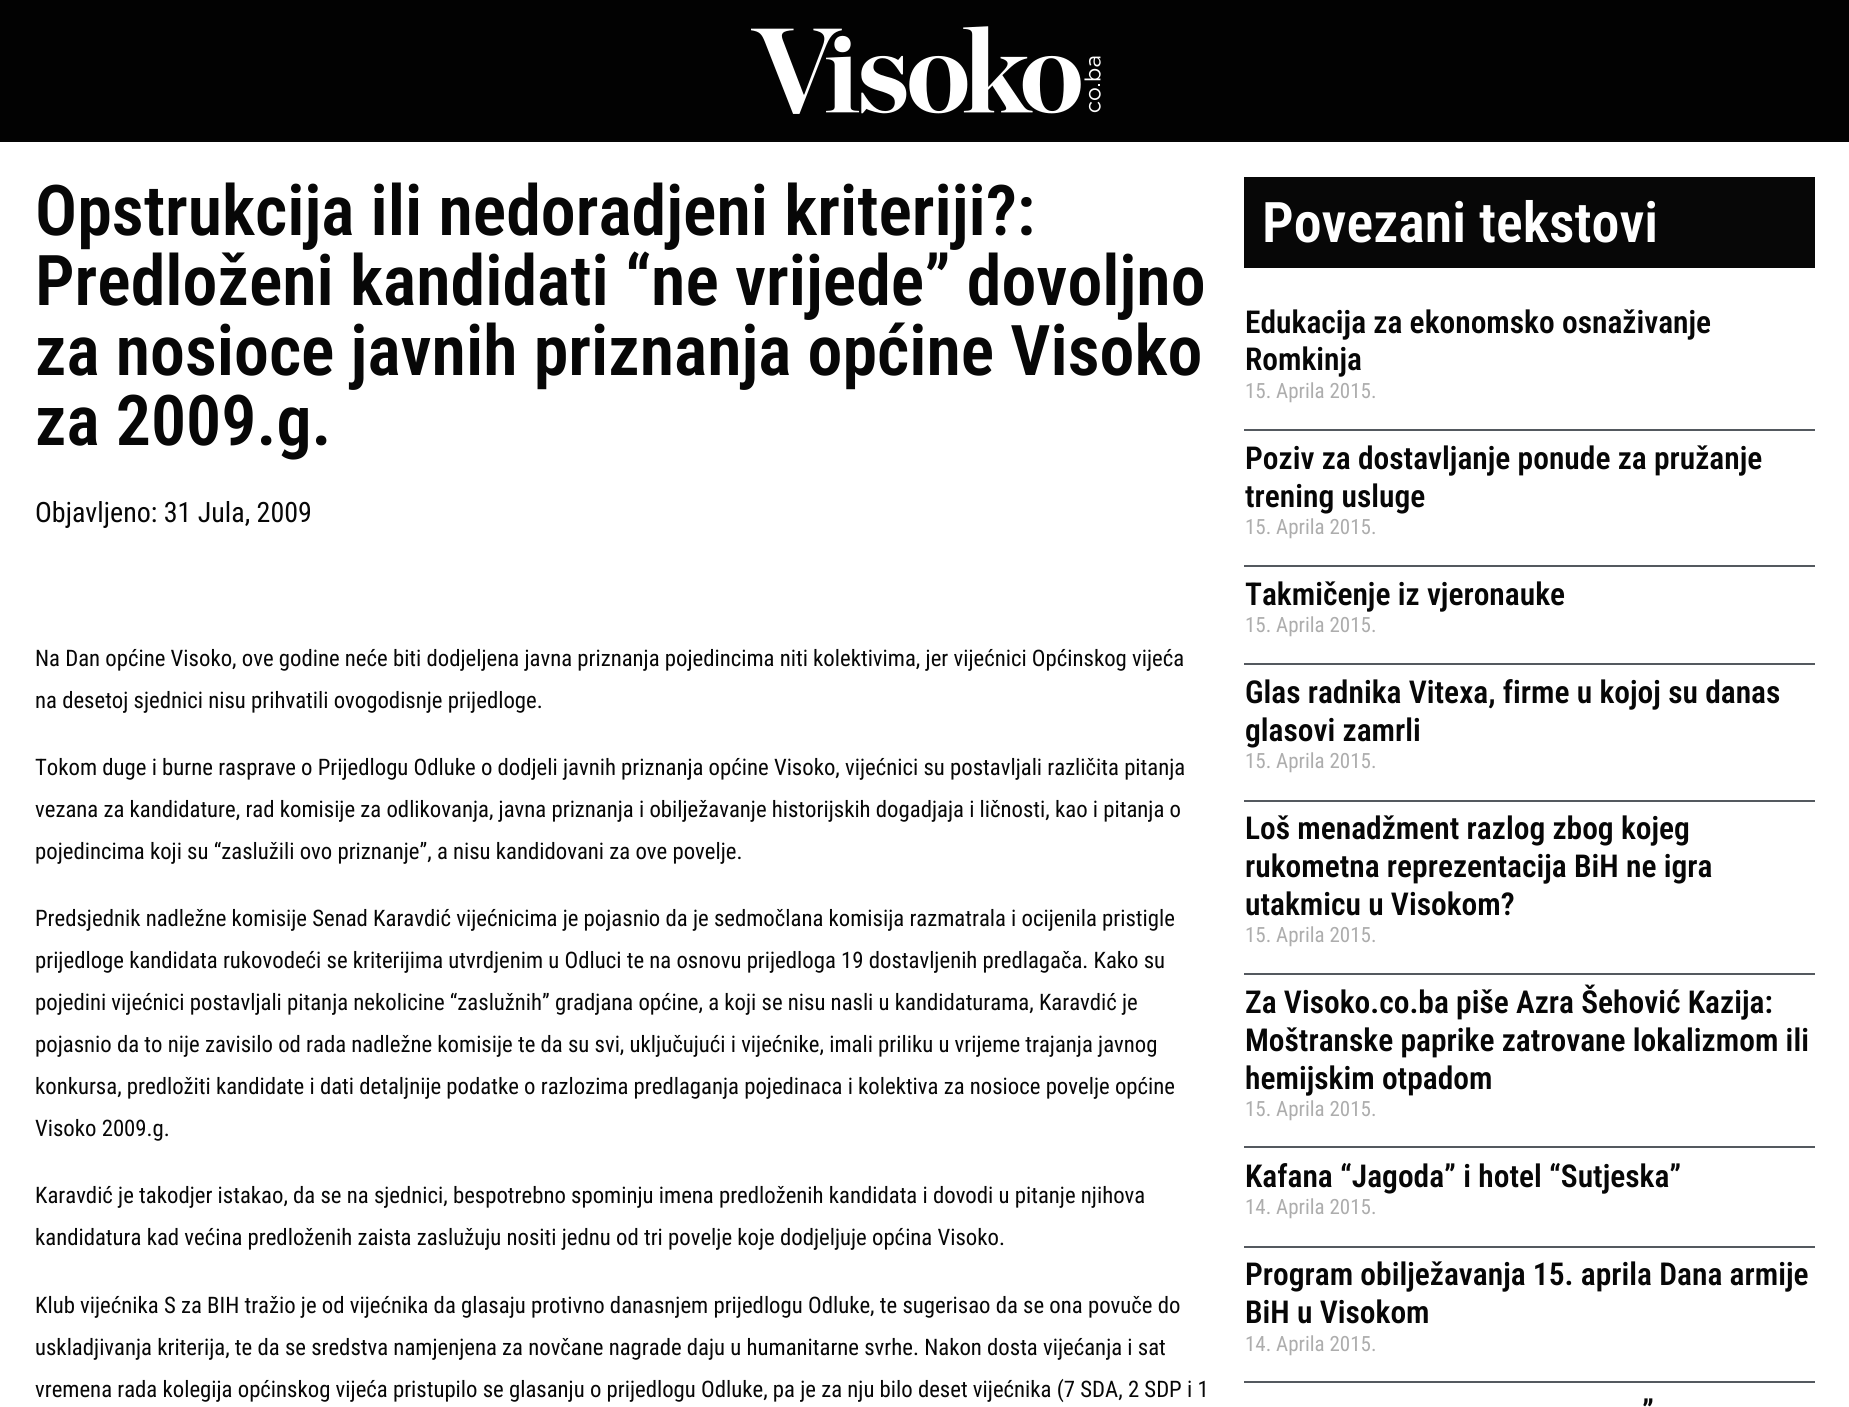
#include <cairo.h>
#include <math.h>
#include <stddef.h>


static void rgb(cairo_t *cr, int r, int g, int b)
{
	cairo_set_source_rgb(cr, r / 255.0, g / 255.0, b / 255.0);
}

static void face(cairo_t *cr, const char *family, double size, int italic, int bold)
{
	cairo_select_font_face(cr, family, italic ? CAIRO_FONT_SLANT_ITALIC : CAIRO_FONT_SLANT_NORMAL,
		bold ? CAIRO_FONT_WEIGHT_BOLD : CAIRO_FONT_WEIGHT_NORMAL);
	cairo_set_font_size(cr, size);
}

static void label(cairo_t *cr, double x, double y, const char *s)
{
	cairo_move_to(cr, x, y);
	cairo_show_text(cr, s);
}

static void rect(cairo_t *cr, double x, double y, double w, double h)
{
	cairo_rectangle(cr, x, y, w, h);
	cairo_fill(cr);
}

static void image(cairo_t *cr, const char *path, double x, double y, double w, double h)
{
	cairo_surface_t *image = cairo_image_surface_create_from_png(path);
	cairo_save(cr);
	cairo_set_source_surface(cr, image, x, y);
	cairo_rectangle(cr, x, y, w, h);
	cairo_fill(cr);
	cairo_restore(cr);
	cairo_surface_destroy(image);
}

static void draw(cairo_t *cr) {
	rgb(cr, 255, 255, 255);
	cairo_paint(cr);
	rgb(cr, 2, 2, 2);
	rect(cr, 0, 0, 1849, 140);
	rgb(cr, 5, 5, 5);
	rect(cr, 0, 140, 1849, 2);
	image(cr, "image0.png", 751, 26, 350, 88);
	face(cr, "Roboto Condensed SemiBold", 70, 0, 0);
	rgb(cr, 7, 7, 7);
	label(cr, 35, 235, "Opstrukcija ili nedoradjeni kriteriji?:");
	label(cr, 35, 305, "Predloženi kandidati “ne vrijede” dovoljno");
	label(cr, 35, 375, "za nosioce javnih priznanja općine Visoko");
	label(cr, 35, 445, "za 2009.g.");
	face(cr, "Roboto Condensed", 28, 0, 0);
	label(cr, 35, 522, "Objavljeno: 31 Jula, 2009");
	face(cr, "Roboto Condensed", 22.75, 0, 0);
	label(cr, 35, 666, "Na Dan općine Visoko, ove godine neće biti dodjeljena javna priznanja pojedincima niti kolektivima, jer vijećnici Općinskog vijeća");
	label(cr, 35, 708, "na desetoj sjednici nisu prihvatili ovogodisnje prijedloge.");
	label(cr, 35, 775, "Tokom duge i burne rasprave o Prijedlogu Odluke o dodjeli javnih priznanja općine Visoko, vijećnici su postavljali različita pitanja");
	label(cr, 35, 817, "vezana za kandidature, rad komisije za odlikovanja, javna priznanja i obilježavanje historijskih dogadjaja i ličnosti, kao i pitanja o");
	label(cr, 35, 859, "pojedincima koji su “zaslužili ovo priznanje”, a nisu kandidovani za ove povelje.");
	label(cr, 35, 926, "Predsjednik nadležne komisije Senad Karavdić vijećnicima je pojasnio da je sedmočlana komisija razmatrala i ocijenila pristigle");
	label(cr, 35, 968, "prijedloge kandidata rukovodeći se kriterijima utvrdjenim u Odluci te na osnovu prijedloga 19 dostavljenih predlagača. Kako su");
	label(cr, 35, 1010, "pojedini vijećnici postavljali pitanja nekolicine “zaslužnih” gradjana općine, a koji se nisu nasli u kandidaturama, Karavdić je");
	label(cr, 35, 1052, "pojasnio da to nije zavisilo od rada nadležne komisije te da su svi, uključujući i vijećnike, imali priliku u vrijeme trajanja javnog");
	label(cr, 35, 1094, "konkursa, predložiti kandidate i dati detaljnije podatke o razlozima predlaganja pojedinaca i kolektiva za nosioce povelje općine");
	label(cr, 35, 1136, "Visoko 2009.g.");
	label(cr, 35, 1203, "Karavdić je takodjer istakao, da se na sjednici, bespotrebno spominju imena predloženih kandidata i dovodi u pitanje njihova");
	label(cr, 35, 1245, "kandidatura kad većina predloženih zaista zaslužuju nositi jednu od tri povelje koje dodjeljuje općina Visoko.");
	label(cr, 35, 1313, "Klub vijećnika S za BIH tražio je od vijećnika da glasaju protivno danasnjem prijedlogu Odluke, te sugerisao da se ona povuče do");
	label(cr, 35, 1355, "uskladjivanja kriterija, te da se sredstva namjenjena za novčane nagrade daju u humanitarne svrhe. Nakon dosta vijećanja i sat");
	label(cr, 35, 1397, "vremena rada kolegija općinskog vijeća pristupilo se glasanju o prijedlogu Odluke, pa je za nju bilo deset vijećnika (7 SDA, 2 SDP i 1");
	rect(cr, 1244, 177, 571, 91);
	face(cr, "Roboto Condensed SemiBold", 56, 0, 0);
	rgb(cr, 255, 255, 255);
	label(cr, 1262, 242, "Povezani tekstovi");
	rgb(cr, 84, 89, 95);
	rect(cr, 1244, 429, 571, 2);
	face(cr, "Roboto Condensed SemiBold", 31.5, 0, 0);
	rgb(cr, 7, 7, 7);
	label(cr, 1245, 333, "Edukacija za ekonomsko osnaživanje");
	label(cr, 1245, 370, "Romkinja");
	face(cr, "Roboto Condensed", 21, 0, 0);
	rgb(cr, 173, 173, 173);
	label(cr, 1245, 398, "15. Aprila 2015.");
	rgb(cr, 84, 89, 95);
	rect(cr, 1244, 565, 571, 2);
	face(cr, "Roboto Condensed SemiBold", 31.5, 0, 0);
	rgb(cr, 7, 7, 7);
	label(cr, 1245, 469, "Poziv za dostavljanje ponude za pružanje");
	label(cr, 1245, 507, "trening usluge");
	face(cr, "Roboto Condensed", 21, 0, 0);
	rgb(cr, 173, 173, 173);
	label(cr, 1245, 534, "15. Aprila 2015.");
	rgb(cr, 84, 89, 95);
	rect(cr, 1244, 663, 571, 2);
	face(cr, "Roboto Condensed SemiBold", 31.5, 0, 0);
	rgb(cr, 7, 7, 7);
	label(cr, 1245, 605, "Takmičenje iz vjeronauke");
	face(cr, "Roboto Condensed", 21, 0, 0);
	rgb(cr, 173, 173, 173);
	label(cr, 1245, 632, "15. Aprila 2015.");
	rgb(cr, 84, 89, 95);
	rect(cr, 1244, 800, 571, 2);
	face(cr, "Roboto Condensed SemiBold", 31.5, 0, 0);
	rgb(cr, 7, 7, 7);
	label(cr, 1245, 703, "Glas radnika Vitexa, firme u kojoj su danas");
	label(cr, 1245, 741, "glasovi zamrli");
	face(cr, "Roboto Condensed", 21, 0, 0);
	rgb(cr, 173, 173, 173);
	label(cr, 1245, 768, "15. Aprila 2015.");
	rgb(cr, 84, 89, 95);
	rect(cr, 1244, 973, 571, 2);
	face(cr, "Roboto Condensed SemiBold", 31.5, 0, 0);
	rgb(cr, 7, 7, 7);
	label(cr, 1245, 839, "Loš menadžment razlog zbog kojeg");
	label(cr, 1245, 877, "rukometna reprezentacija BiH ne igra");
	label(cr, 1245, 915, "utakmicu u Visokom?");
	face(cr, "Roboto Condensed", 21, 0, 0);
	rgb(cr, 173, 173, 173);
	label(cr, 1245, 942, "15. Aprila 2015.");
	rgb(cr, 84, 89, 95);
	rect(cr, 1244, 1146, 571, 2);
	face(cr, "Roboto Condensed SemiBold", 31.5, 0, 0);
	rgb(cr, 7, 7, 7);
	label(cr, 1245, 1013, "Za Visoko.co.ba piše Azra Šehović Kazija:");
	label(cr, 1245, 1051, "Moštranske paprike zatrovane lokalizmom ili");
	label(cr, 1245, 1089, "hemijskim otpadom");
	face(cr, "Roboto Condensed", 21, 0, 0);
	rgb(cr, 173, 173, 173);
	label(cr, 1245, 1116, "15. Aprila 2015.");
	rgb(cr, 84, 89, 95);
	rect(cr, 1244, 1246, 571, 2);
	face(cr, "Roboto Condensed SemiBold", 31.5, 0, 0);
	rgb(cr, 7, 7, 7);
	label(cr, 1245, 1187, "Kafana “Jagoda” i hotel “Sutjeska”");
	face(cr, "Roboto Condensed", 21, 0, 0);
	rgb(cr, 173, 173, 173);
	label(cr, 1245, 1214, "14. Aprila 2015.");
	rgb(cr, 84, 89, 95);
	rect(cr, 1244, 1381, 571, 2);
	face(cr, "Roboto Condensed SemiBold", 31.5, 0, 0);
	rgb(cr, 7, 7, 7);
	label(cr, 1245, 1285, "Program obilježavanja 15. aprila Dana armije");
	label(cr, 1245, 1323, "BiH u Visokom");
	face(cr, "Roboto Condensed", 21, 0, 0);
	rgb(cr, 173, 173, 173);
	label(cr, 1245, 1351, "14. Aprila 2015.");
	face(cr, "Roboto Condensed SemiBold", 31.5, 0, 0);
	rgb(cr, 7, 7, 7);
	label(cr, 1642, 1422, "”");
}

int main(void) {
	cairo_surface_t *surface = cairo_image_surface_create(CAIRO_FORMAT_RGB24, 1849, 1407);
	cairo_t *cr = cairo_create(surface);
	cairo_font_options_t *options = cairo_font_options_create();
	cairo_font_options_set_hint_metrics(options, CAIRO_HINT_METRICS_OFF);
	cairo_font_options_set_hint_style(options, CAIRO_HINT_STYLE_NONE);
	cairo_set_font_options(cr, options);
	cairo_set_miter_limit(cr, 4);
	draw(cr);
	cairo_surface_write_to_png(surface, "render.png");
	cairo_font_options_destroy(options);
	cairo_destroy(cr);
	cairo_surface_destroy(surface);
	return 0;
}
